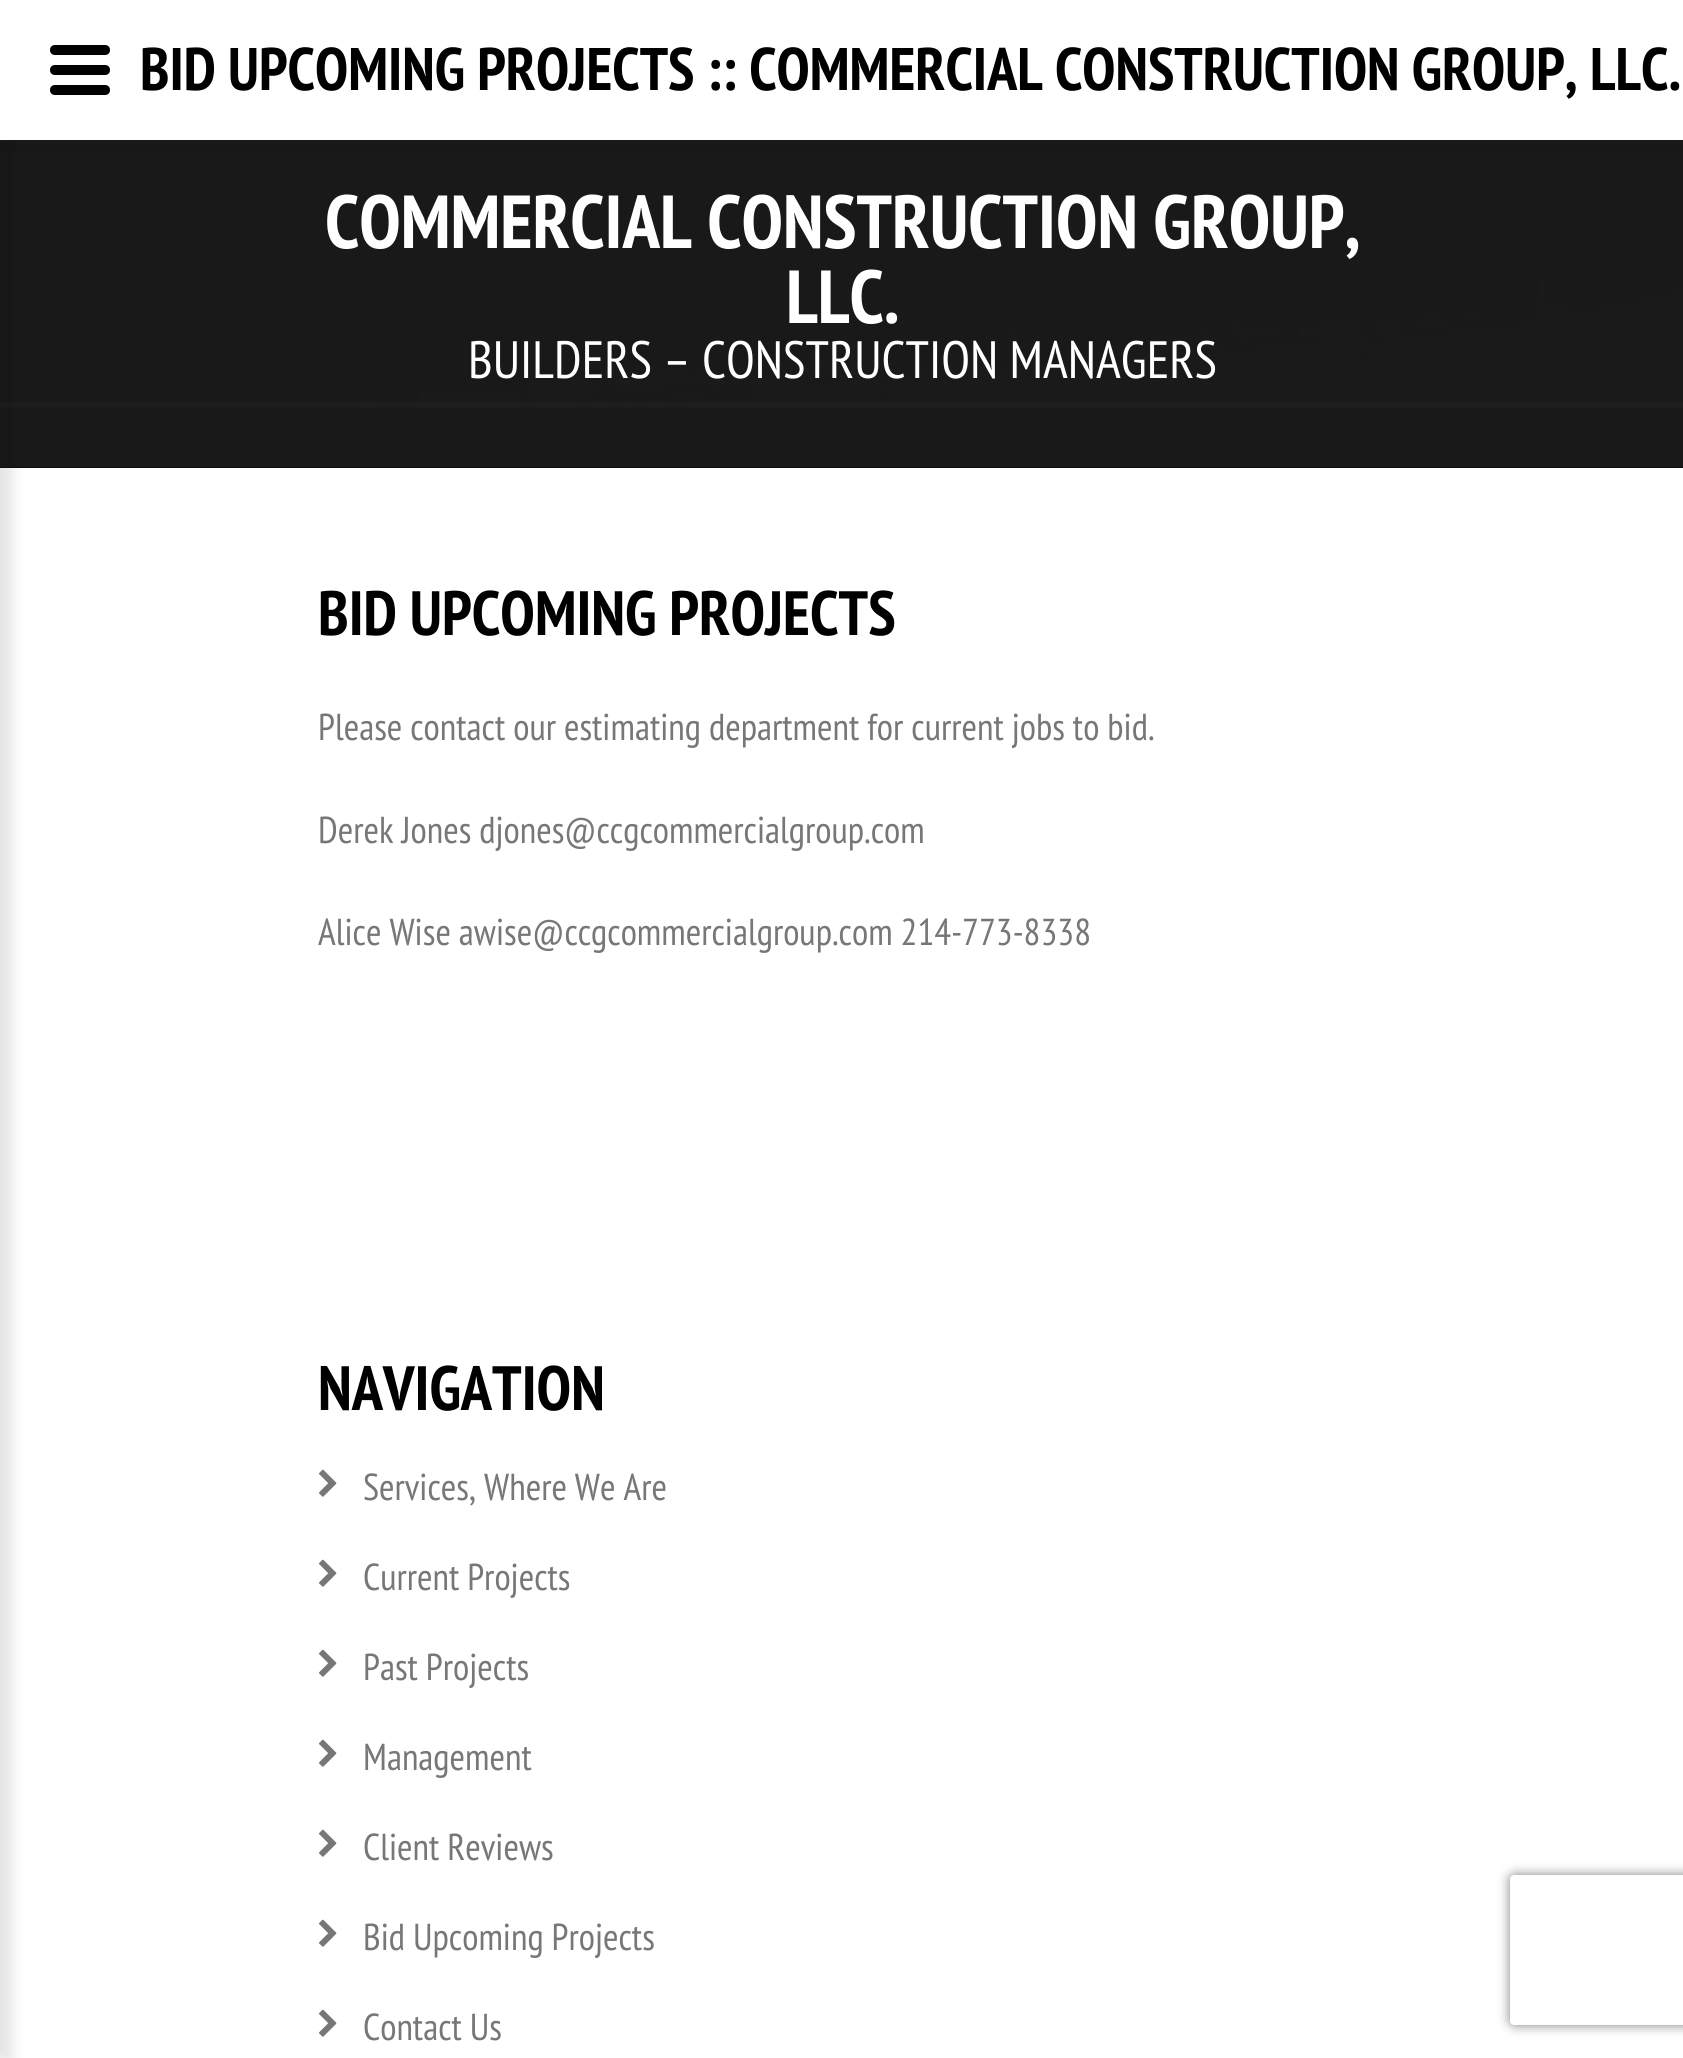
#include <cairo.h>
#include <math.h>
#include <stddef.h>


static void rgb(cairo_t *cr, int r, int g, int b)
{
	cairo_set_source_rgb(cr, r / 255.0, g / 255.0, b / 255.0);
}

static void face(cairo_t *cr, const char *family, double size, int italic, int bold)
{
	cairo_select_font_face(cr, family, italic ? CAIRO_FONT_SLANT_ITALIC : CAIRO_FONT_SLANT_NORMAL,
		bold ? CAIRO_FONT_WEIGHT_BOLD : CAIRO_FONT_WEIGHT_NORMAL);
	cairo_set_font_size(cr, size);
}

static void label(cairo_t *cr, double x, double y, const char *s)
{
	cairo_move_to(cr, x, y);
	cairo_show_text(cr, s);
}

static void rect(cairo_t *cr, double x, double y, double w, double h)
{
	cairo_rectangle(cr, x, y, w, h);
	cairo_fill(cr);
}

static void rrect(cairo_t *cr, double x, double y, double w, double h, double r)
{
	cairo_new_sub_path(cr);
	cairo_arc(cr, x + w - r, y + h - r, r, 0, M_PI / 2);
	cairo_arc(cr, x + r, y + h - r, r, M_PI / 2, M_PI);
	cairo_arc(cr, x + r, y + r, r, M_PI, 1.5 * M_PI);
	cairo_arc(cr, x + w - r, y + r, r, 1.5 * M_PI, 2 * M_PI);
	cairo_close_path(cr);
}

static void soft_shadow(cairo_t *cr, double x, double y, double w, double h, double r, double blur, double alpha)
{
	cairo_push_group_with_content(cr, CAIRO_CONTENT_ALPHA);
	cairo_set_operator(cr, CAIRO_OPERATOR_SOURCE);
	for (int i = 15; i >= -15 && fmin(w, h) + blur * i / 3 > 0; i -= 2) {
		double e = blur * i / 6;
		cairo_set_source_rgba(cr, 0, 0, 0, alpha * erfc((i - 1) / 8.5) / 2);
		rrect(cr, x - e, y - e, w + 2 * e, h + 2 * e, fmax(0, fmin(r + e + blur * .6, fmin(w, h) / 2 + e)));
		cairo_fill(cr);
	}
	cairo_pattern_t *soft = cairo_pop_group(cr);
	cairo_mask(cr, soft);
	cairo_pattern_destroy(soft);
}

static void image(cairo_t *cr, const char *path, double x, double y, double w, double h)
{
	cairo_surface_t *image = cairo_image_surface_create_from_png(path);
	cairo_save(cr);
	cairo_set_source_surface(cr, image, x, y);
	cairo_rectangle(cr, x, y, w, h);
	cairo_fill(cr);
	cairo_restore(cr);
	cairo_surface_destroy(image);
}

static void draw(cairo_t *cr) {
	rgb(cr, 255, 255, 255);
	cairo_paint(cr);
	rgb(cr, 0, 0, 0);
	rect(cr, 0, 467, 1683, 1);
	image(cr, "image0.png", 0, 140, 1683, 328);
	rgb(cr, 0, 0, 0);
	soft_shadow(cr, 0, 8, 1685, 140, 0, 4, 0.1);
	soft_shadow(cr, -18, 140, 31, 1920, 0, 6, 0.1);
	rgb(cr, 255, 255, 255);
	rect(cr, 0, 3, 1683, 137);
	rgb(cr, 0, 0, 0);
	cairo_new_path(cr);
	cairo_move_to(cr, 105, 75);
	cairo_line_to(cr, 55, 75);
	cairo_curve_to(cr, 52, 75, 50, 73, 50, 70);
	cairo_curve_to(cr, 50, 67, 52, 65, 55, 65);
	cairo_line_to(cr, 105, 65);
	cairo_curve_to(cr, 108, 65, 110, 67, 110, 70);
	cairo_curve_to(cr, 110, 73, 108, 75, 105, 75);
	cairo_close_path(cr);
	cairo_move_to(cr, 105, 95);
	cairo_line_to(cr, 55, 95);
	cairo_curve_to(cr, 52, 95, 50, 93, 50, 90);
	cairo_curve_to(cr, 50, 87, 52, 85, 55, 85);
	cairo_line_to(cr, 105, 85);
	cairo_curve_to(cr, 108, 85, 110, 87, 110, 90);
	cairo_curve_to(cr, 110, 93, 108, 95, 105, 95);
	cairo_close_path(cr);
	cairo_move_to(cr, 105, 55);
	cairo_line_to(cr, 55, 55);
	cairo_curve_to(cr, 52, 55, 50, 53, 50, 50);
	cairo_curve_to(cr, 50, 47, 52, 45, 55, 45);
	cairo_line_to(cr, 105, 45);
	cairo_curve_to(cr, 108, 45, 110, 47, 110, 50);
	cairo_curve_to(cr, 110, 53, 108, 55, 105, 55);
	cairo_close_path(cr);
	cairo_fill(cr);
	face(cr, "PT Sans Narrow", 60, 0, 1);
	label(cr, 140, 90, "BID UPCOMING PROJECTS :: COMMERCIAL CONSTRUCTION GROUP, LLC.");
	face(cr, "PT Sans Narrow", 75, 0, 1);
	rgb(cr, 255, 255, 255);
	label(cr, 325, 248, "COMMERCIAL CONSTRUCTION GROUP,");
	label(cr, 786, 323, "LLC.");
	face(cr, "PT Sans Narrow", 52.5, 0, 0);
	label(cr, 468, 378, "BUILDERS – CONSTRUCTION MANAGERS");
	face(cr, "PT Sans Narrow", 62.5, 0, 1);
	rgb(cr, 0, 0, 0);
	label(cr, 318, 635, "BID UPCOMING PROJECTS");
	face(cr, "PT Sans Narrow", 37.5, 0, 0);
	rgb(cr, 119, 119, 119);
	label(cr, 318, 740, "Please contact our estimating department for current jobs to bid.");
	label(cr, 318, 843, "Derek Jones djones@ccgcommercialgroup.com");
	label(cr, 318, 945, "Alice Wise awise@ccgcommercialgroup.com 214-773-8338");
	face(cr, "PT Sans Narrow", 62.5, 0, 1);
	rgb(cr, 0, 0, 0);
	label(cr, 318, 1410, "NAVIGATION");
	image(cr, "image1.png", 319, 1469, 18, 28);
	face(cr, "PT Sans Narrow", 37.5, 0, 0);
	rgb(cr, 119, 119, 119);
	label(cr, 363, 1500, "Services, Where We Are");
	image(cr, "image1.png", 319, 1559, 18, 28);
	label(cr, 363, 1590, "Current Projects");
	image(cr, "image1.png", 319, 1649, 18, 28);
	label(cr, 363, 1680, "Past Projects");
	image(cr, "image1.png", 319, 1739, 18, 28);
	label(cr, 363, 1770, "Management");
	image(cr, "image1.png", 319, 1829, 18, 28);
	label(cr, 363, 1860, "Client Reviews");
	image(cr, "image1.png", 319, 1919, 18, 28);
	label(cr, 363, 1950, "Bid Upcoming Projects");
	image(cr, "image1.png", 319, 2009, 18, 28);
	label(cr, 363, 2040, "Contact Us");
	cairo_save(cr);
	cairo_set_fill_rule(cr, CAIRO_FILL_RULE_EVEN_ODD);
	cairo_new_path(cr);
	cairo_move_to(cr, 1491, 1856);
	cairo_line_to(cr, 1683, 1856);
	cairo_line_to(cr, 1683, 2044);
	cairo_line_to(cr, 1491, 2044);
	cairo_close_path(cr);
	cairo_move_to(cr, 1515, 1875);
	cairo_line_to(cr, 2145, 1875);
	cairo_curve_to(cr, 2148, 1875, 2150, 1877, 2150, 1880);
	cairo_line_to(cr, 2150, 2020);
	cairo_curve_to(cr, 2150, 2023, 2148, 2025, 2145, 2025);
	cairo_line_to(cr, 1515, 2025);
	cairo_curve_to(cr, 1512, 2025, 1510, 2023, 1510, 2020);
	cairo_line_to(cr, 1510, 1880);
	cairo_curve_to(cr, 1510, 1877, 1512, 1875, 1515, 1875);
	cairo_close_path(cr);
	cairo_clip(cr);
	rgb(cr, 128, 128, 128);
	soft_shadow(cr, 1510, 1875, 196, 150, 5, 6, 1);
	cairo_restore(cr);
}

int main(void) {
	cairo_surface_t *surface = cairo_image_surface_create(CAIRO_FORMAT_RGB24, 1683, 2058);
	cairo_t *cr = cairo_create(surface);
	cairo_font_options_t *options = cairo_font_options_create();
	cairo_font_options_set_hint_metrics(options, CAIRO_HINT_METRICS_OFF);
	cairo_font_options_set_hint_style(options, CAIRO_HINT_STYLE_NONE);
	cairo_set_font_options(cr, options);
	cairo_set_miter_limit(cr, 4);
	draw(cr);
	cairo_surface_write_to_png(surface, "render.png");
	cairo_font_options_destroy(options);
	cairo_destroy(cr);
	cairo_surface_destroy(surface);
	return 0;
}
